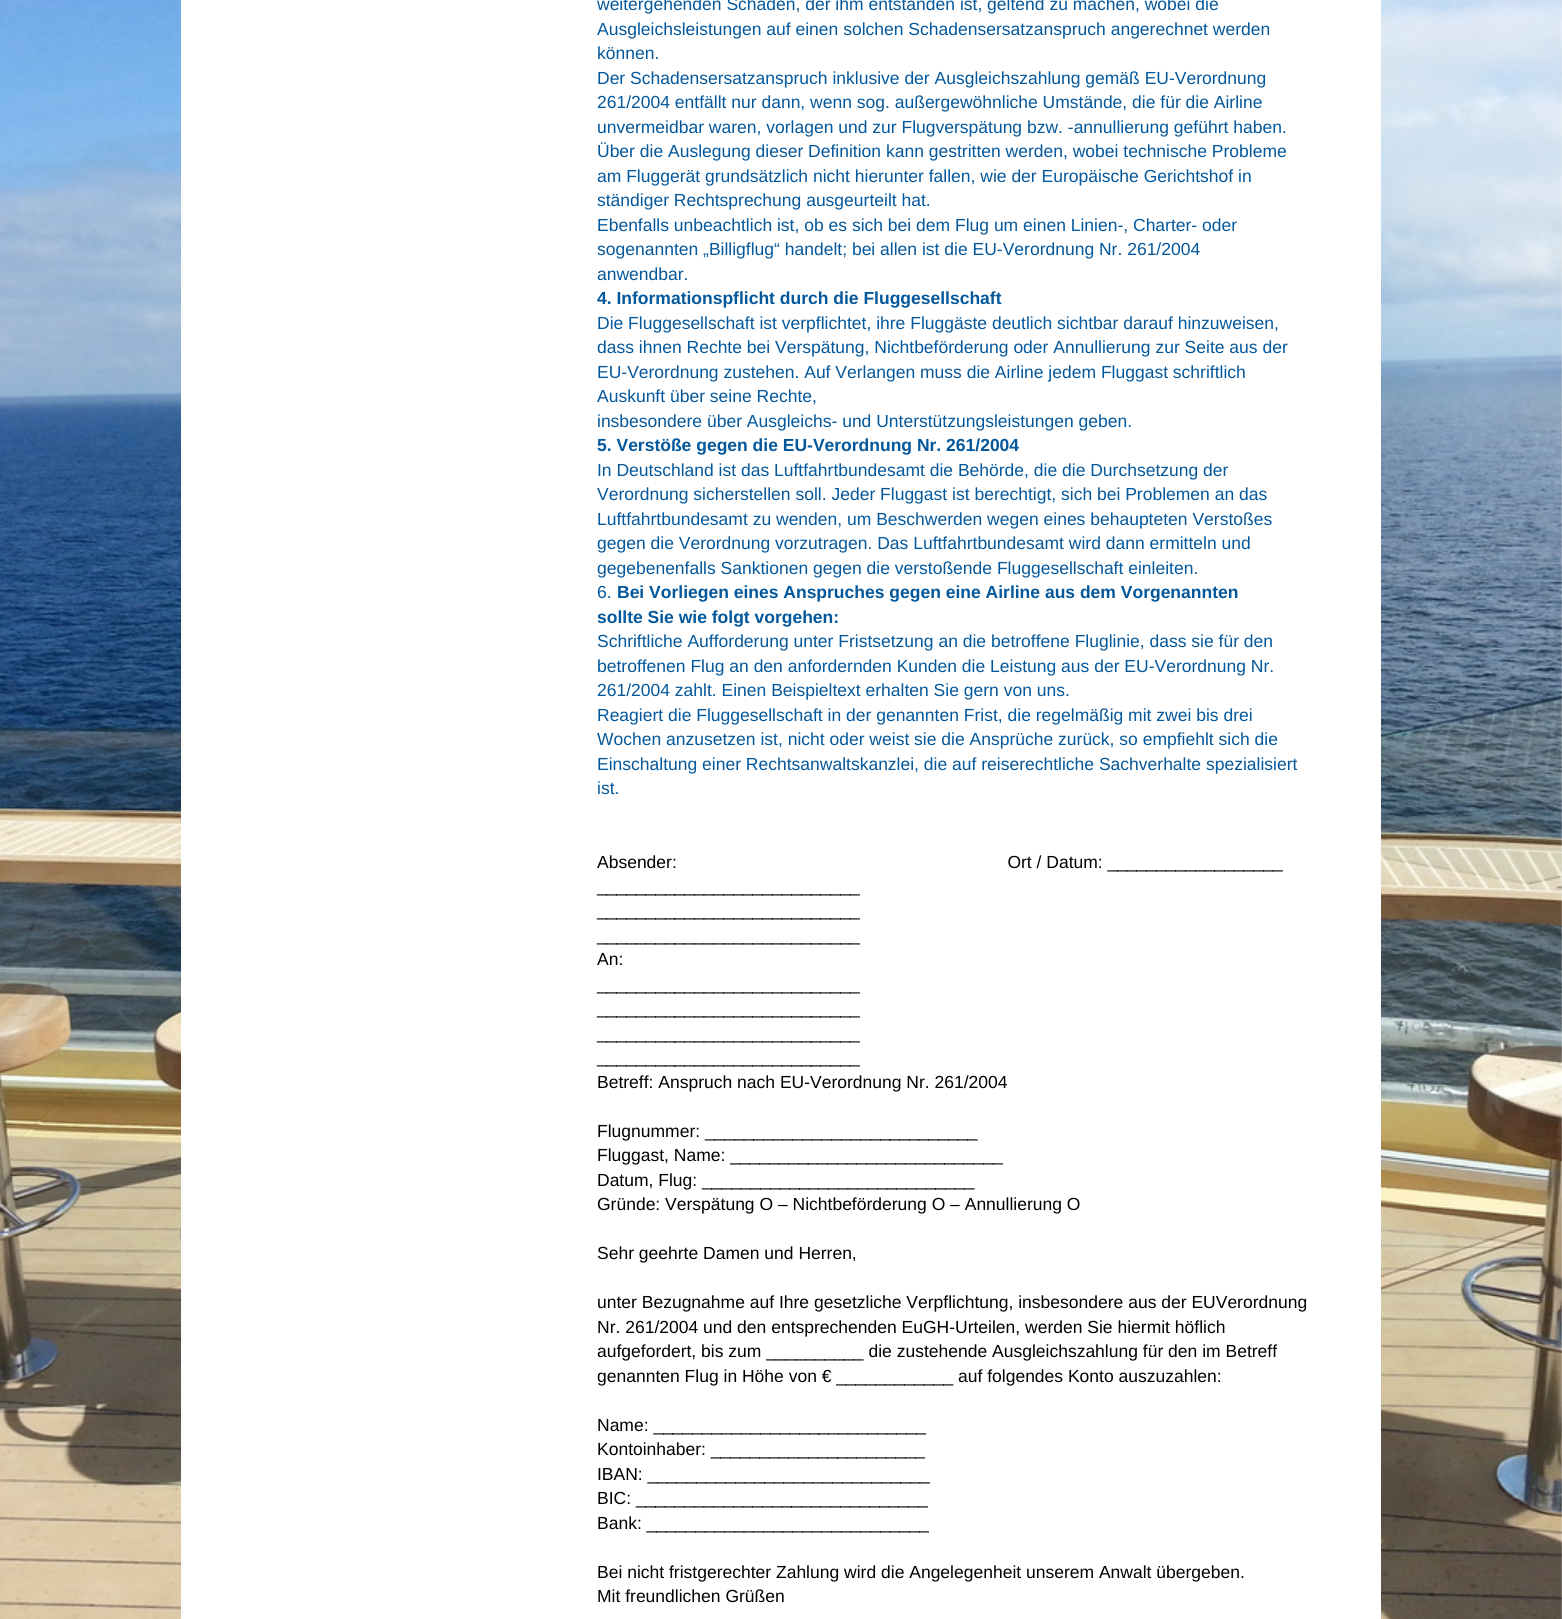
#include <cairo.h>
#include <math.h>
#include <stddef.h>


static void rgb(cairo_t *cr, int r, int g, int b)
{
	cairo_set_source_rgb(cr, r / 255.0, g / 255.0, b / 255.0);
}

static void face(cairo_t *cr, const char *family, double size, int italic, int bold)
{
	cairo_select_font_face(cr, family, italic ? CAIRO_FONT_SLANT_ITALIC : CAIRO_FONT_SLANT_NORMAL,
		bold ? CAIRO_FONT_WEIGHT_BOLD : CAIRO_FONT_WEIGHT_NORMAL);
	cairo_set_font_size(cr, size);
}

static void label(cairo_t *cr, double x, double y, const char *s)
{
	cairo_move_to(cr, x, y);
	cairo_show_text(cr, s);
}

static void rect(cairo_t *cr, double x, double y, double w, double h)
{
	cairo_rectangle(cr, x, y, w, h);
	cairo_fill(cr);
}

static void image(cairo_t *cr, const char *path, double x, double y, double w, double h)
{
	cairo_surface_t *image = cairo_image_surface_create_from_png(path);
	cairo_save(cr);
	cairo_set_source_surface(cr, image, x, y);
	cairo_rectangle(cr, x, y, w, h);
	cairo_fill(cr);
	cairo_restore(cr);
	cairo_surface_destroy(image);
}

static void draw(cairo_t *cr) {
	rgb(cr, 255, 255, 255);
	cairo_paint(cr);
	image(cr, "image0.png", 0, 0, 1562, 1619);
	rgb(cr, 255, 255, 255);
	rect(cr, 181, 0, 1200, 1619);
	face(cr, "Liberation Sans", 17.5, 0, 0);
	rgb(cr, 3, 87, 155);
	label(cr, 597, 10, "weitergehenden Schaden, der ihm entstanden ist, geltend zu machen, wobei die");
	label(cr, 597, 35, "Ausgleichsleistungen auf einen solchen Schadensersatzanspruch angerechnet werden");
	label(cr, 597, 59, "können.");
	label(cr, 597, 84, "Der Schadensersatzanspruch inklusive der Ausgleichszahlung gemäß EU-Verordnung");
	label(cr, 597, 108, "261/2004 entfällt nur dann, wenn sog. außergewöhnliche Umstände, die für die Airline");
	label(cr, 597, 133, "unvermeidbar waren, vorlagen und zur Flugverspätung bzw. -annullierung geführt haben.");
	label(cr, 597, 157, "Über die Auslegung dieser Definition kann gestritten werden, wobei technische Probleme");
	label(cr, 597, 182, "am Fluggerät grundsätzlich nicht hierunter fallen, wie der Europäische Gerichtshof in");
	label(cr, 597, 206, "ständiger Rechtsprechung ausgeurteilt hat.");
	label(cr, 597, 231, "Ebenfalls unbeachtlich ist, ob es sich bei dem Flug um einen Linien-, Charter- oder");
	label(cr, 597, 255, "sogenannten „Billigflug“ handelt; bei allen ist die EU-Verordnung Nr. 261/2004");
	label(cr, 597, 280, "anwendbar.");
	face(cr, "Liberation Sans", 17.5, 0, 1);
	label(cr, 597, 304, "4. Informationspflicht durch die Fluggesellschaft");
	face(cr, "Liberation Sans", 17.5, 0, 0);
	label(cr, 597, 329, "Die Fluggesellschaft ist verpflichtet, ihre Fluggäste deutlich sichtbar darauf hinzuweisen,");
	label(cr, 597, 353, "dass ihnen Rechte bei Verspätung, Nichtbeförderung oder Annullierung zur Seite aus der");
	label(cr, 597, 378, "EU-Verordnung zustehen. Auf Verlangen muss die Airline jedem Fluggast schriftlich");
	label(cr, 597, 402, "Auskunft über seine Rechte,");
	label(cr, 597, 427, "insbesondere über Ausgleichs- und Unterstützungsleistungen geben.");
	face(cr, "Liberation Sans", 17.5, 0, 1);
	label(cr, 597, 451, "5. Verstöße gegen die EU-Verordnung Nr. 261/2004");
	face(cr, "Liberation Sans", 17.5, 0, 0);
	label(cr, 597, 476, "In Deutschland ist das Luftfahrtbundesamt die Behörde, die die Durchsetzung der");
	label(cr, 597, 500, "Verordnung sicherstellen soll. Jeder Fluggast ist berechtigt, sich bei Problemen an das");
	label(cr, 597, 525, "Luftfahrtbundesamt zu wenden, um Beschwerden wegen eines behaupteten Verstoßes");
	label(cr, 597, 549, "gegen die Verordnung vorzutragen. Das Luftfahrtbundesamt wird dann ermitteln und");
	label(cr, 597, 574, "gegebenenfalls Sanktionen gegen die verstoßende Fluggesellschaft einleiten.");
	label(cr, 597, 598, "6.");
	face(cr, "Liberation Sans", 17.5, 0, 1);
	label(cr, 617, 598, "Bei Vorliegen eines Anspruches gegen eine Airline aus dem Vorgenannten");
	label(cr, 597, 623, "sollte Sie wie folgt vorgehen:");
	face(cr, "Liberation Sans", 17.5, 0, 0);
	label(cr, 597, 647, "Schriftliche Aufforderung unter Fristsetzung an die betroffene Fluglinie, dass sie für den");
	label(cr, 597, 672, "betroffenen Flug an den anfordernden Kunden die Leistung aus der EU-Verordnung Nr.");
	label(cr, 597, 696, "261/2004 zahlt. Einen Beispieltext erhalten Sie gern von uns.");
	label(cr, 597, 721, "Reagiert die Fluggesellschaft in der genannten Frist, die regelmäßig mit zwei bis drei");
	label(cr, 597, 745, "Wochen anzusetzen ist, nicht oder weist sie die Ansprüche zurück, so empfiehlt sich die");
	label(cr, 597, 770, "Einschaltung einer Rechtsanwaltskanzlei, die auf reiserechtliche Sachverhalte spezialisiert");
	label(cr, 597, 794, "ist.");
	rgb(cr, 0, 0, 0);
	label(cr, 597, 868, "Absender:                                                                    Ort / Datum: __________________");
	label(cr, 597, 892, "___________________________");
	label(cr, 597, 916, "___________________________");
	label(cr, 597, 941, "___________________________");
	label(cr, 597, 965, "An:");
	label(cr, 597, 990, "___________________________");
	label(cr, 597, 1014, "___________________________");
	label(cr, 597, 1039, "___________________________");
	label(cr, 597, 1063, "___________________________");
	label(cr, 597, 1088, "Betreff: Anspruch nach EU-Verordnung Nr. 261/2004");
	label(cr, 597, 1137, "Flugnummer: ____________________________");
	label(cr, 597, 1161, "Fluggast, Name: ____________________________");
	label(cr, 597, 1186, "Datum, Flug: ____________________________");
	label(cr, 597, 1210, "Gründe: Verspätung O – Nichtbeförderung O – Annullierung O");
	label(cr, 597, 1259, "Sehr geehrte Damen und Herren,");
	label(cr, 597, 1308, "unter Bezugnahme auf Ihre gesetzliche Verpflichtung, insbesondere aus der EUVerordnung");
	label(cr, 597, 1333, "Nr. 261/2004 und den entsprechenden EuGH-Urteilen, werden Sie hiermit höflich");
	label(cr, 597, 1357, "aufgefordert, bis zum __________ die zustehende Ausgleichszahlung für den im Betreff");
	label(cr, 597, 1382, "genannten Flug in Höhe von € ____________ auf folgendes Konto auszuzahlen:");
	label(cr, 597, 1431, "Name: ____________________________");
	label(cr, 597, 1455, "Kontoinhaber: ______________________");
	label(cr, 597, 1480, "IBAN: _____________________________");
	label(cr, 597, 1504, "BIC: ______________________________");
	label(cr, 597, 1529, "Bank: _____________________________");
	label(cr, 597, 1578, "Bei nicht fristgerechter Zahlung wird die Angelegenheit unserem Anwalt übergeben.");
	label(cr, 597, 1602, "Mit freundlichen Grüßen");
}

int main(void) {
	cairo_surface_t *surface = cairo_image_surface_create(CAIRO_FORMAT_RGB24, 1562, 1619);
	cairo_t *cr = cairo_create(surface);
	cairo_font_options_t *options = cairo_font_options_create();
	cairo_font_options_set_hint_metrics(options, CAIRO_HINT_METRICS_OFF);
	cairo_font_options_set_hint_style(options, CAIRO_HINT_STYLE_NONE);
	cairo_set_font_options(cr, options);
	cairo_set_miter_limit(cr, 4);
	draw(cr);
	cairo_surface_write_to_png(surface, "render.png");
	cairo_font_options_destroy(options);
	cairo_destroy(cr);
	cairo_surface_destroy(surface);
	return 0;
}
